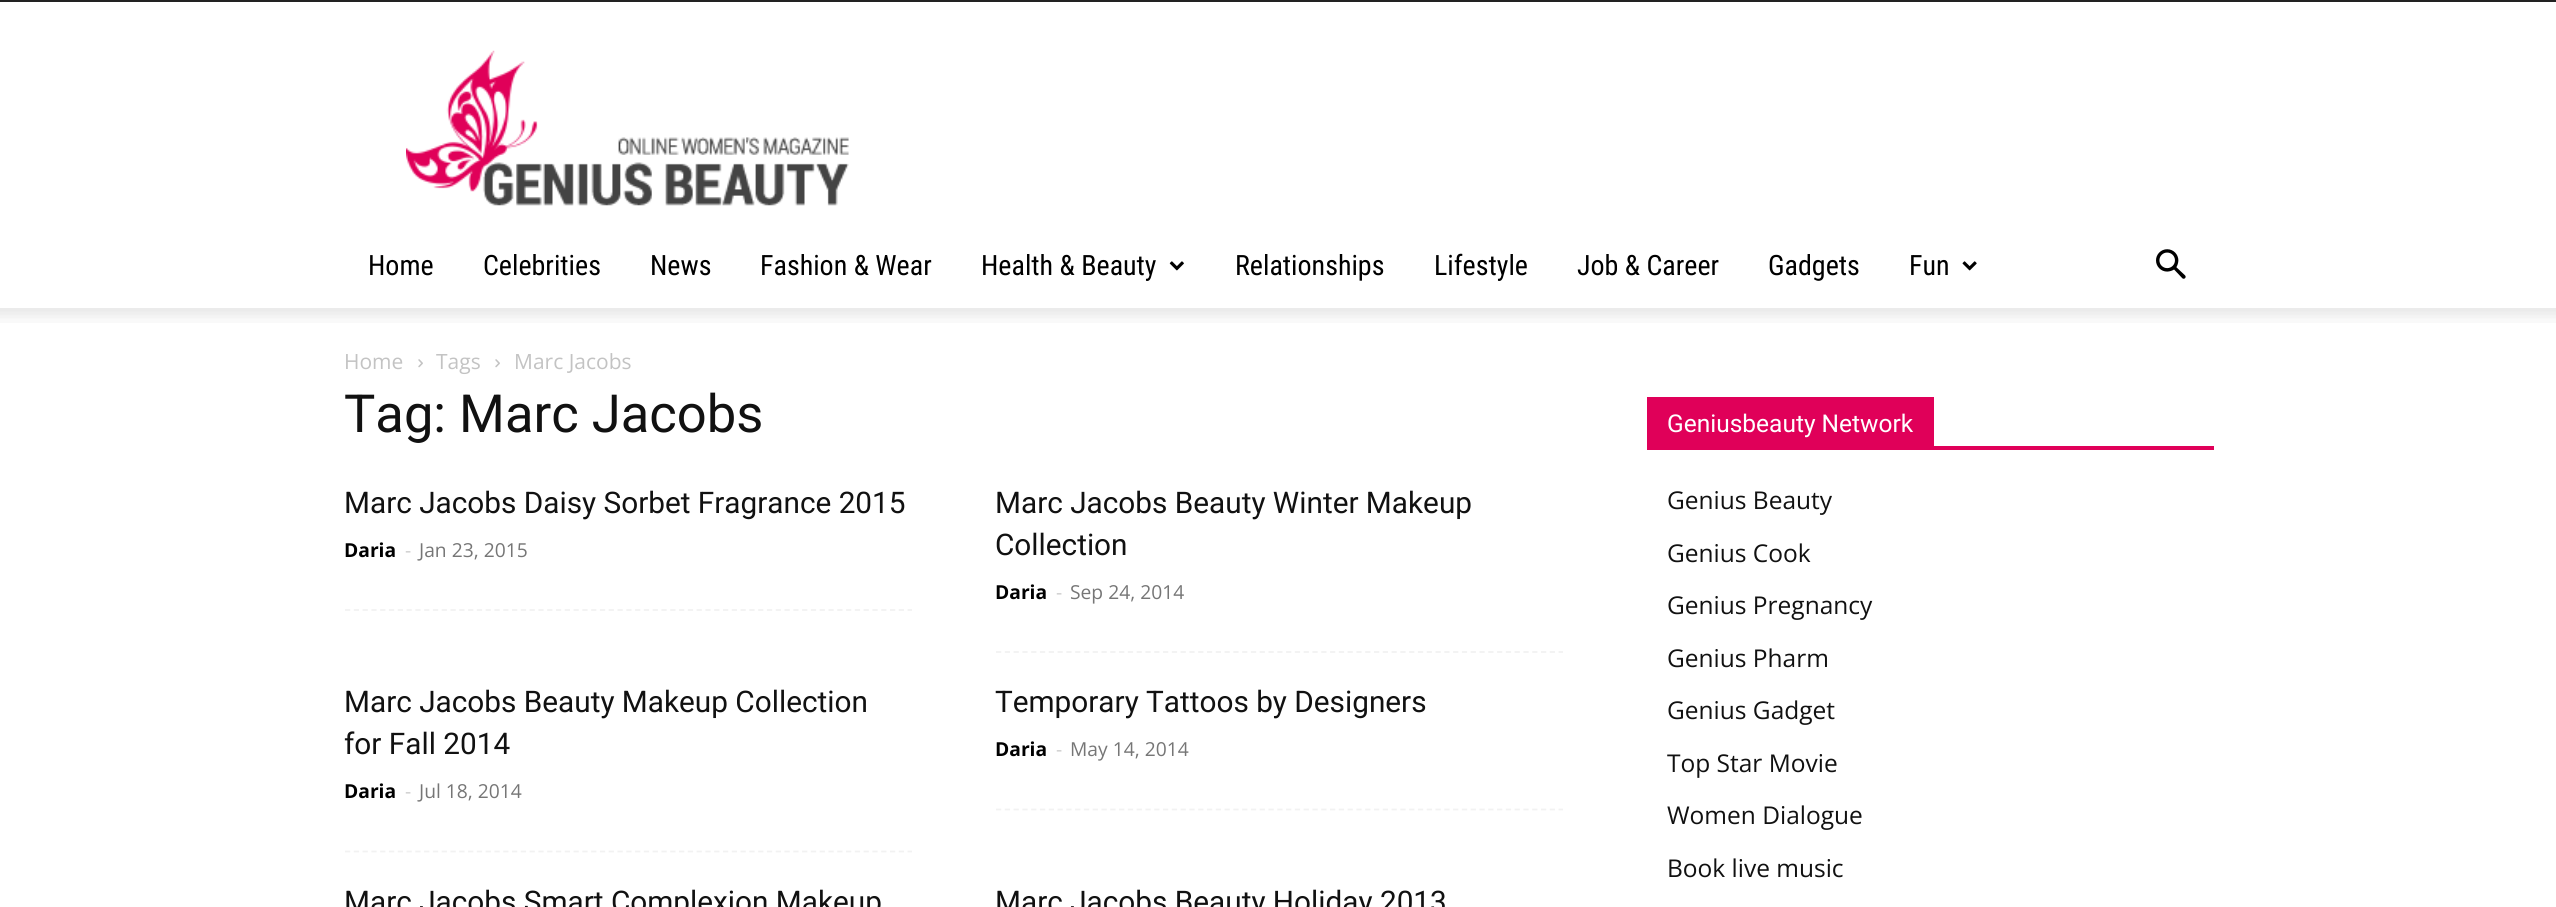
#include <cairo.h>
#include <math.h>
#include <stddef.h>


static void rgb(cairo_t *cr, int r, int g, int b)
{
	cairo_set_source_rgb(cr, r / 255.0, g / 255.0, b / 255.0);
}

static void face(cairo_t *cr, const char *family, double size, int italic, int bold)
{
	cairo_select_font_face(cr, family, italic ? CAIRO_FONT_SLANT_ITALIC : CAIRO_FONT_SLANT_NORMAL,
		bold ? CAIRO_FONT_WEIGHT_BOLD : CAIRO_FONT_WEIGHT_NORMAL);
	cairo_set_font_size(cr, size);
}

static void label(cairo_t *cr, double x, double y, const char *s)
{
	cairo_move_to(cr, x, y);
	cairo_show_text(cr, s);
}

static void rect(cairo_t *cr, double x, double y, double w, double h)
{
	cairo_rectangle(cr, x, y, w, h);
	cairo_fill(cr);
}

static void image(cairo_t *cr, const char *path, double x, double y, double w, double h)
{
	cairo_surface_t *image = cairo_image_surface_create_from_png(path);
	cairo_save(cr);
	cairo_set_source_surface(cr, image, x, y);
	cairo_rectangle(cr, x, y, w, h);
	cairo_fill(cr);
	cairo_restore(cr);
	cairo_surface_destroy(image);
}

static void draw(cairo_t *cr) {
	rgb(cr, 255, 255, 255);
	cairo_paint(cr);
	rgb(cr, 34, 34, 34);
	rect(cr, 0, 0, 2556, 2);
	image(cr, "image0.png", 406, 50, 443, 156);
	face(cr, "Roboto Condensed", 28, 0, 0);
	rgb(cr, 0, 0, 0);
	label(cr, 368, 275, "Home");
	label(cr, 483, 275, "Celebrities");
	label(cr, 650, 275, "News");
	label(cr, 760, 275, "Fashion & Wear");
	label(cr, 981, 275, "Health & Beauty");
	image(cr, "image1.png", 1169, 261, 15, 10);
	label(cr, 1235, 275, "Relationships");
	label(cr, 1434, 275, "Lifestyle");
	label(cr, 1577, 275, "Job & Career");
	label(cr, 1768, 275, "Gadgets");
	label(cr, 1909, 275, "Fun");
	image(cr, "image2.png", 1962, 261, 15, 10);
	image(cr, "image3.png", 2156, 249, 30, 30);
	image(cr, "image4.png", 0, 308, 2556, 15);
	face(cr, "Open Sans", 21, 0, 0);
	rgb(cr, 195, 195, 195);
	label(cr, 344, 369, "Home");
	image(cr, "image5.png", 418, 359, 5, 9);
	label(cr, 436, 369, "Tags");
	image(cr, "image5.png", 495, 359, 5, 9);
	label(cr, 514, 369, "Marc Jacobs");
	face(cr, "Roboto", 52.5, 0, 0);
	rgb(cr, 17, 17, 17);
	label(cr, 344, 432, "Tag: Marc Jacobs");
	cairo_new_path(cr);
	cairo_move_to(cr, 345, 610);
	cairo_line_to(cr, 912, 610);
	rgb(cr, 242, 242, 242);
	cairo_set_line_width(cr, 1.8);
	cairo_set_dash(cr, (double[]){5.25, 3.54}, 2, 0);
	cairo_stroke(cr);
	face(cr, "Roboto", 29.75, 0, 0);
	rgb(cr, 17, 17, 17);
	label(cr, 344, 513, "Marc Jacobs Daisy Sorbet Fragrance 2015");
	face(cr, "Open Sans", 19.25, 0, 1);
	rgb(cr, 0, 0, 0);
	label(cr, 344, 557, "Daria");
	face(cr, "Open Sans", 19.25, 0, 0);
	rgb(cr, 204, 204, 204);
	label(cr, 405, 557, "-");
	rgb(cr, 118, 118, 118);
	label(cr, 419, 557, "Jan 23, 2015");
	cairo_new_path(cr);
	cairo_move_to(cr, 996, 652);
	cairo_line_to(cr, 1563, 652);
	rgb(cr, 242, 242, 242);
	cairo_stroke(cr);
	face(cr, "Roboto", 29.75, 0, 0);
	rgb(cr, 17, 17, 17);
	label(cr, 995, 513, "Marc Jacobs Beauty Winter Makeup");
	label(cr, 995, 555, "Collection");
	face(cr, "Open Sans", 19.25, 0, 1);
	rgb(cr, 0, 0, 0);
	label(cr, 995, 599, "Daria");
	face(cr, "Open Sans", 19.25, 0, 0);
	rgb(cr, 204, 204, 204);
	label(cr, 1056, 599, "-");
	rgb(cr, 118, 118, 118);
	label(cr, 1070, 599, "Sep 24, 2014");
	cairo_new_path(cr);
	cairo_move_to(cr, 345, 851.5);
	cairo_line_to(cr, 912, 851.5);
	rgb(cr, 242, 242, 242);
	cairo_stroke(cr);
	face(cr, "Roboto", 29.75, 0, 0);
	rgb(cr, 17, 17, 17);
	label(cr, 344, 712, "Marc Jacobs Beauty Makeup Collection");
	label(cr, 344, 754, "for Fall 2014");
	face(cr, "Open Sans", 19.25, 0, 1);
	rgb(cr, 0, 0, 0);
	label(cr, 344, 798, "Daria");
	face(cr, "Open Sans", 19.25, 0, 0);
	rgb(cr, 204, 204, 204);
	label(cr, 405, 798, "-");
	rgb(cr, 118, 118, 118);
	label(cr, 419, 798, "Jul 18, 2014");
	cairo_new_path(cr);
	cairo_move_to(cr, 996, 809.5);
	cairo_line_to(cr, 1563, 809.5);
	rgb(cr, 242, 242, 242);
	cairo_stroke(cr);
	face(cr, "Roboto", 29.75, 0, 0);
	rgb(cr, 17, 17, 17);
	label(cr, 995, 712, "Temporary Tattoos by Designers");
	face(cr, "Open Sans", 19.25, 0, 1);
	rgb(cr, 0, 0, 0);
	label(cr, 995, 756, "Daria");
	face(cr, "Open Sans", 19.25, 0, 0);
	rgb(cr, 204, 204, 204);
	label(cr, 1056, 756, "-");
	rgb(cr, 118, 118, 118);
	label(cr, 1070, 756, "May 14, 2014");
	face(cr, "Roboto", 29.75, 0, 0);
	rgb(cr, 17, 17, 17);
	label(cr, 344, 912, "Marc Jacobs Smart Complexion Makeup");
	label(cr, 995, 912, "Marc Jacobs Beauty Holiday 2013");
	rgb(cr, 224, 0, 89);
	rect(cr, 1647, 446, 567, 4);
	rect(cr, 1647, 397, 287, 49);
	face(cr, "Roboto", 24.5, 0, 0);
	rgb(cr, 255, 255, 255);
	label(cr, 1667, 432, "Geniusbeauty Network");
	face(cr, "Open Sans", 24.5, 0, 0);
	rgb(cr, 17, 17, 17);
	label(cr, 1667, 509, "Genius Beauty");
	label(cr, 1667, 562, "Genius Cook");
	label(cr, 1667, 614, "Genius Pregnancy");
	label(cr, 1667, 667, "Genius Pharm");
	label(cr, 1667, 719, "Genius Gadget");
	label(cr, 1667, 772, "Top Star Movie");
	label(cr, 1667, 824, "Women Dialogue");
	label(cr, 1667, 877, "Book live music");
}

int main(void) {
	cairo_surface_t *surface = cairo_image_surface_create(CAIRO_FORMAT_RGB24, 2556, 907);
	cairo_t *cr = cairo_create(surface);
	cairo_font_options_t *options = cairo_font_options_create();
	cairo_font_options_set_hint_metrics(options, CAIRO_HINT_METRICS_OFF);
	cairo_font_options_set_hint_style(options, CAIRO_HINT_STYLE_NONE);
	cairo_set_font_options(cr, options);
	cairo_set_miter_limit(cr, 4);
	draw(cr);
	cairo_surface_write_to_png(surface, "render.png");
	cairo_font_options_destroy(options);
	cairo_destroy(cr);
	cairo_surface_destroy(surface);
	return 0;
}
